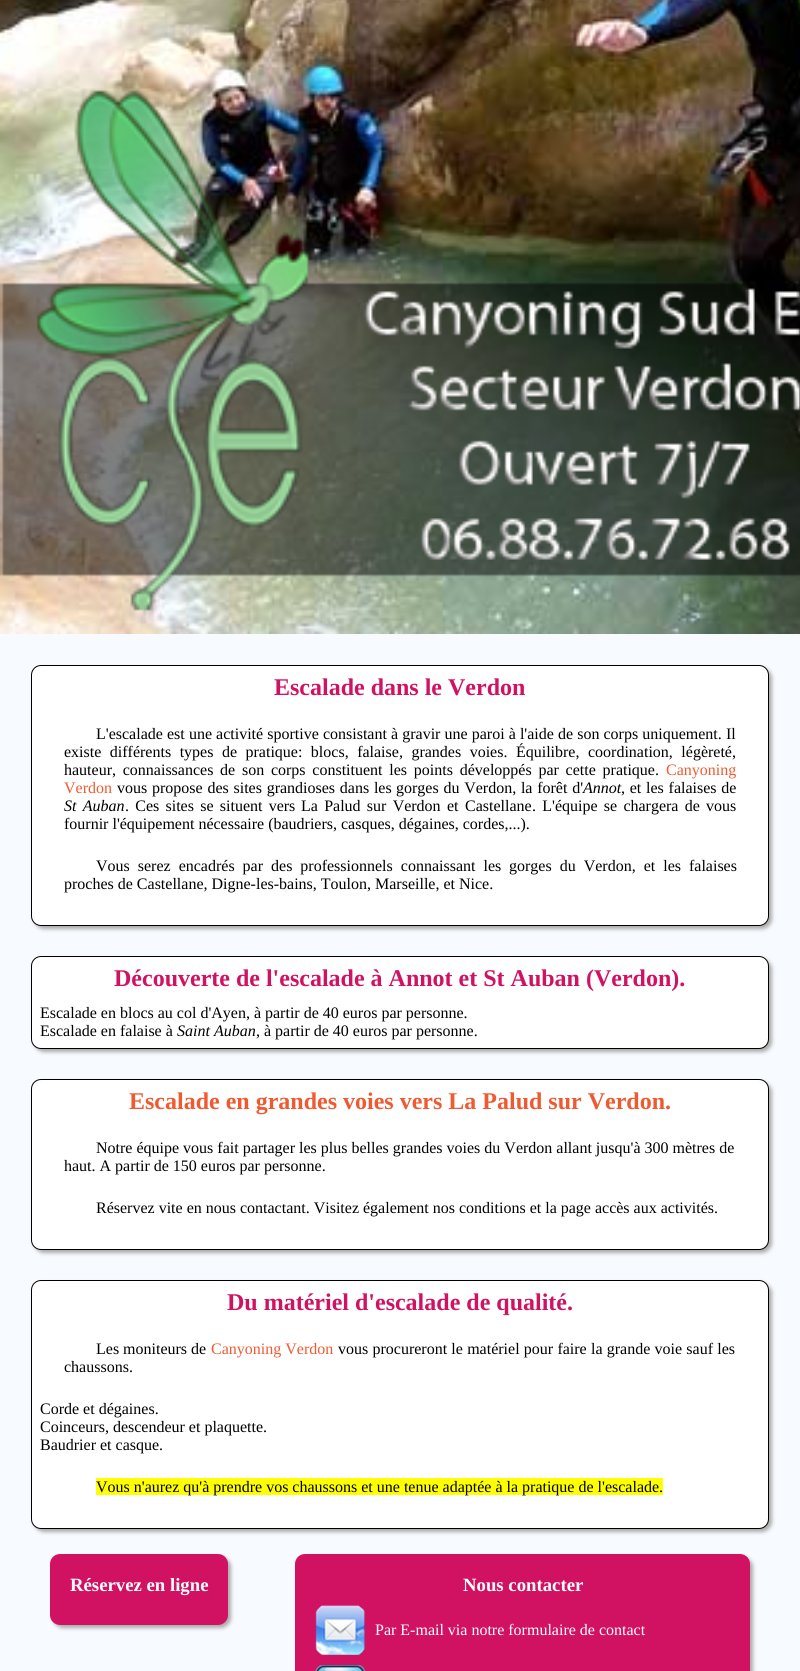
#include <cairo.h>
#include <math.h>
#include <stddef.h>


static void rgb(cairo_t *cr, int r, int g, int b)
{
	cairo_set_source_rgb(cr, r / 255.0, g / 255.0, b / 255.0);
}

static void face(cairo_t *cr, const char *family, double size, int italic, int bold)
{
	cairo_select_font_face(cr, family, italic ? CAIRO_FONT_SLANT_ITALIC : CAIRO_FONT_SLANT_NORMAL,
		bold ? CAIRO_FONT_WEIGHT_BOLD : CAIRO_FONT_WEIGHT_NORMAL);
	cairo_set_font_size(cr, size);
}

static void label(cairo_t *cr, double x, double y, const char *s)
{
	cairo_move_to(cr, x, y);
	cairo_show_text(cr, s);
}

static void tracked(cairo_t *cr, double x, double y, const char *s, double letter, double word)
{
	cairo_move_to(cr, x, y);
	while (*s) {
		char ch[5] = {0};
		int n = 0;
		do ch[n++] = *s++; while ((*s & 0xC0) == 0x80);
		cairo_show_text(cr, ch);
		cairo_rel_move_to(cr, letter + word * (*ch == ' '), 0);
	}
}

static void rect(cairo_t *cr, double x, double y, double w, double h)
{
	cairo_rectangle(cr, x, y, w, h);
	cairo_fill(cr);
}

static void rrect(cairo_t *cr, double x, double y, double w, double h, double r)
{
	cairo_new_sub_path(cr);
	cairo_arc(cr, x + w - r, y + h - r, r, 0, M_PI / 2);
	cairo_arc(cr, x + r, y + h - r, r, M_PI / 2, M_PI);
	cairo_arc(cr, x + r, y + r, r, M_PI, 1.5 * M_PI);
	cairo_arc(cr, x + w - r, y + r, r, 1.5 * M_PI, 2 * M_PI);
	cairo_close_path(cr);
}

static void soft_shadow(cairo_t *cr, double x, double y, double w, double h, double r, double blur, double alpha)
{
	cairo_push_group_with_content(cr, CAIRO_CONTENT_ALPHA);
	cairo_set_operator(cr, CAIRO_OPERATOR_SOURCE);
	for (int i = 15; i >= -15 && fmin(w, h) + blur * i / 3 > 0; i -= 2) {
		double e = blur * i / 6;
		cairo_set_source_rgba(cr, 0, 0, 0, alpha * erfc((i - 1) / 8.5) / 2);
		rrect(cr, x - e, y - e, w + 2 * e, h + 2 * e, fmax(0, fmin(r + e + blur * .6, fmin(w, h) / 2 + e)));
		cairo_fill(cr);
	}
	cairo_pattern_t *soft = cairo_pop_group(cr);
	cairo_mask(cr, soft);
	cairo_pattern_destroy(soft);
}

static void image(cairo_t *cr, const char *path, double x, double y, double w, double h)
{
	cairo_surface_t *image = cairo_image_surface_create_from_png(path);
	cairo_save(cr);
	cairo_set_source_surface(cr, image, x, y);
	cairo_rectangle(cr, x, y, w, h);
	cairo_fill(cr);
	cairo_restore(cr);
	cairo_surface_destroy(image);
}

static void draw(cairo_t *cr) {
	rgb(cr, 255, 255, 255);
	cairo_paint(cr);
	image(cr, "image0.png", 0, 0, 800, 634);
	rgb(cr, 247, 250, 255);
	rect(cr, 0, 634, 800, 1037);
	rgb(cr, 170, 170, 170);
	soft_shadow(cr, 34, 668, 738, 261, 10, 2, 1);
	rgb(cr, 255, 255, 255);
	rrect(cr, 31.5, 665.5, 737, 260, 9.5);
	cairo_fill_preserve(cr);
	rgb(cr, 0, 0, 0);
	cairo_set_line_width(cr, 1);
	cairo_stroke(cr);
	face(cr, "Liberation Serif", 24, 0, 1);
	rgb(cr, 209, 18, 99);
	label(cr, 274, 695, "Escalade dans le Verdon");
	face(cr, "Liberation Serif", 16, 0, 0);
	rgb(cr, 0, 0, 0);
	label(cr, 96, 739, "L'escalade");
	tracked(cr, 167, 739, "est une activité sportive consistant à gravir une paroi à l'aide de son corps uniquement. Il", 0, 0.1);
	tracked(cr, 64, 757, "existe différents types de pratique: blocs, falaise, grandes voies. Équilibre, coordination, légèreté,", 0, 4.5);
	tracked(cr, 64, 775, "hauteur, connaissances de son corps constituent les points développés par cette pratique.", 0, 2.75);
	rgb(cr, 239, 90, 49);
	label(cr, 666, 775, "Canyoning");
	label(cr, 64, 793, "Verdon");
	rgb(cr, 0, 0, 0);
	tracked(cr, 117, 793, "vous propose des sites grandioses dans les", 0, 0.75);
	tracked(cr, 396, 793, "gorges du Verdon, la forêt d'", 0, 0.75);
	face(cr, "Liberation Serif", 16, 1, 0);
	label(cr, 583, 793, "Annot");
	face(cr, "Liberation Serif", 16, 0, 0);
	tracked(cr, 621, 793, ", et les falaises de", 0, 0.75);
	face(cr, "Liberation Serif", 16, 1, 0);
	tracked(cr, 64, 811, "St Auban", 0, 2.25);
	face(cr, "Liberation Serif", 16, 0, 0);
	tracked(cr, 125, 811, ". Ces sites se situent vers", 0, 2.25);
	tracked(cr, 301, 811, "La Palud sur Verdon", 0, 2.25);
	label(cr, 447, 811, "et");
	label(cr, 465, 811, "Castellane");
	tracked(cr, 532, 811, ". L'équipe se chargera de vous", 0, 2.25);
	label(cr, 64, 829, "fournir l'équipement nécessaire (baudriers, casques, dégaines, cordes,...).");
	tracked(cr, 96, 871, "Vous serez encadrés par des professionnels connaissant les", 0, 4);
	tracked(cr, 509, 871, "gorges du Verdon, et les falaises", 0, 4);
	label(cr, 64, 889, "proches de Castellane, Digne-les-bains, Toulon, Marseille, et Nice.");
	rgb(cr, 170, 170, 170);
	soft_shadow(cr, 34, 959, 738, 93, 10, 2, 1);
	rgb(cr, 255, 255, 255);
	rrect(cr, 31.5, 956.5, 737, 92, 9.5);
	cairo_fill_preserve(cr);
	rgb(cr, 0, 0, 0);
	cairo_stroke(cr);
	face(cr, "Liberation Serif", 24, 0, 1);
	rgb(cr, 209, 18, 99);
	label(cr, 114, 986, "Découverte de l'escalade à Annot et St Auban (Verdon).");
	face(cr, "Liberation Serif", 16, 0, 0);
	rgb(cr, 0, 0, 0);
	label(cr, 40, 1018, "Escalade en blocs au col d'Ayen, à partir de 40 euros par personne.");
	label(cr, 40, 1036, "Escalade en falaise à");
	face(cr, "Liberation Serif", 16, 1, 0);
	label(cr, 177, 1036, "Saint Auban");
	face(cr, "Liberation Serif", 16, 0, 0);
	label(cr, 256, 1036, ", à partir de 40 euros par personne.");
	rgb(cr, 170, 170, 170);
	soft_shadow(cr, 34, 1082, 738, 171, 10, 2, 1);
	rgb(cr, 255, 255, 255);
	rrect(cr, 31.5, 1079.5, 737, 170, 9.5);
	cairo_fill_preserve(cr);
	rgb(cr, 0, 0, 0);
	cairo_stroke(cr);
	face(cr, "Liberation Serif", 24, 0, 1);
	rgb(cr, 239, 90, 49);
	label(cr, 129, 1109, "Escalade en grandes voies vers La Palud sur Verdon.");
	face(cr, "Liberation Serif", 16, 0, 0);
	rgb(cr, 0, 0, 0);
	label(cr, 96, 1153, "Notre équipe vous fait partager les plus belles grandes voies du Verdon allant jusqu'à 300 mètres de");
	label(cr, 64, 1171, "haut. A partir de 150 euros par personne.");
	label(cr, 96, 1213, "Réservez vite en nous contactant. Visitez également nos conditions et la page accès aux activités.");
	rgb(cr, 170, 170, 170);
	soft_shadow(cr, 34, 1283, 738, 249, 10, 2, 1);
	rgb(cr, 255, 255, 255);
	rrect(cr, 31.5, 1280.5, 737, 248, 9.5);
	cairo_fill_preserve(cr);
	rgb(cr, 0, 0, 0);
	cairo_stroke(cr);
	face(cr, "Liberation Serif", 24, 0, 1);
	rgb(cr, 209, 18, 99);
	label(cr, 227, 1310, "Du matériel d'escalade de qualité.");
	face(cr, "Liberation Serif", 16, 0, 0);
	rgb(cr, 0, 0, 0);
	label(cr, 96, 1354, "Les moniteurs de");
	rgb(cr, 239, 90, 49);
	label(cr, 211, 1354, "Canyoning Verdon");
	rgb(cr, 0, 0, 0);
	tracked(cr, 338, 1354, "vous procureront le matériel pour faire la grande voie sauf les", 0, 0.25);
	label(cr, 64, 1372, "chaussons.");
	label(cr, 40, 1414, "Corde et dégaines.");
	label(cr, 40, 1432, "Coinceurs, descendeur et plaquette.");
	label(cr, 40, 1450, "Baudrier et casque.");
	rgb(cr, 255, 255, 0);
	rect(cr, 96, 1478, 567, 17);
	rgb(cr, 0, 0, 0);
	label(cr, 96, 1492, "Vous n'aurez qu'à prendre vos chaussons et une tenue adaptée à la pratique de l'escalade.");
	rgb(cr, 170, 170, 170);
	soft_shadow(cr, 53, 1557, 178, 71, 10, 2, 1);
	rgb(cr, 209, 18, 99);
	rrect(cr, 50, 1554, 178, 71, 10);
	cairo_fill(cr);
	face(cr, "Liberation Serif", 18.75, 0, 1);
	rgb(cr, 255, 255, 255);
	label(cr, 70, 1591, "Réservez en ligne");
	rgb(cr, 170, 170, 170);
	soft_shadow(cr, 298, 1557, 455, 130, 10, 2, 1);
	rgb(cr, 209, 18, 99);
	rrect(cr, 295, 1554, 455, 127, 10);
	cairo_fill(cr);
	rgb(cr, 255, 255, 255);
	label(cr, 463, 1591, "Nous contacter");
	image(cr, "image1.png", 315, 1605, 50, 50);
	face(cr, "Liberation Serif", 16, 0, 0);
	label(cr, 375, 1635, "Par E-mail via notre formulaire de contact");
	image(cr, "image2.png", 315, 1665, 50, 6);
}

int main(void) {
	cairo_surface_t *surface = cairo_image_surface_create(CAIRO_FORMAT_RGB24, 800, 1671);
	cairo_t *cr = cairo_create(surface);
	cairo_font_options_t *options = cairo_font_options_create();
	cairo_font_options_set_hint_metrics(options, CAIRO_HINT_METRICS_OFF);
	cairo_font_options_set_hint_style(options, CAIRO_HINT_STYLE_NONE);
	cairo_set_font_options(cr, options);
	cairo_set_miter_limit(cr, 4);
	draw(cr);
	cairo_surface_write_to_png(surface, "render.png");
	cairo_font_options_destroy(options);
	cairo_destroy(cr);
	cairo_surface_destroy(surface);
	return 0;
}
